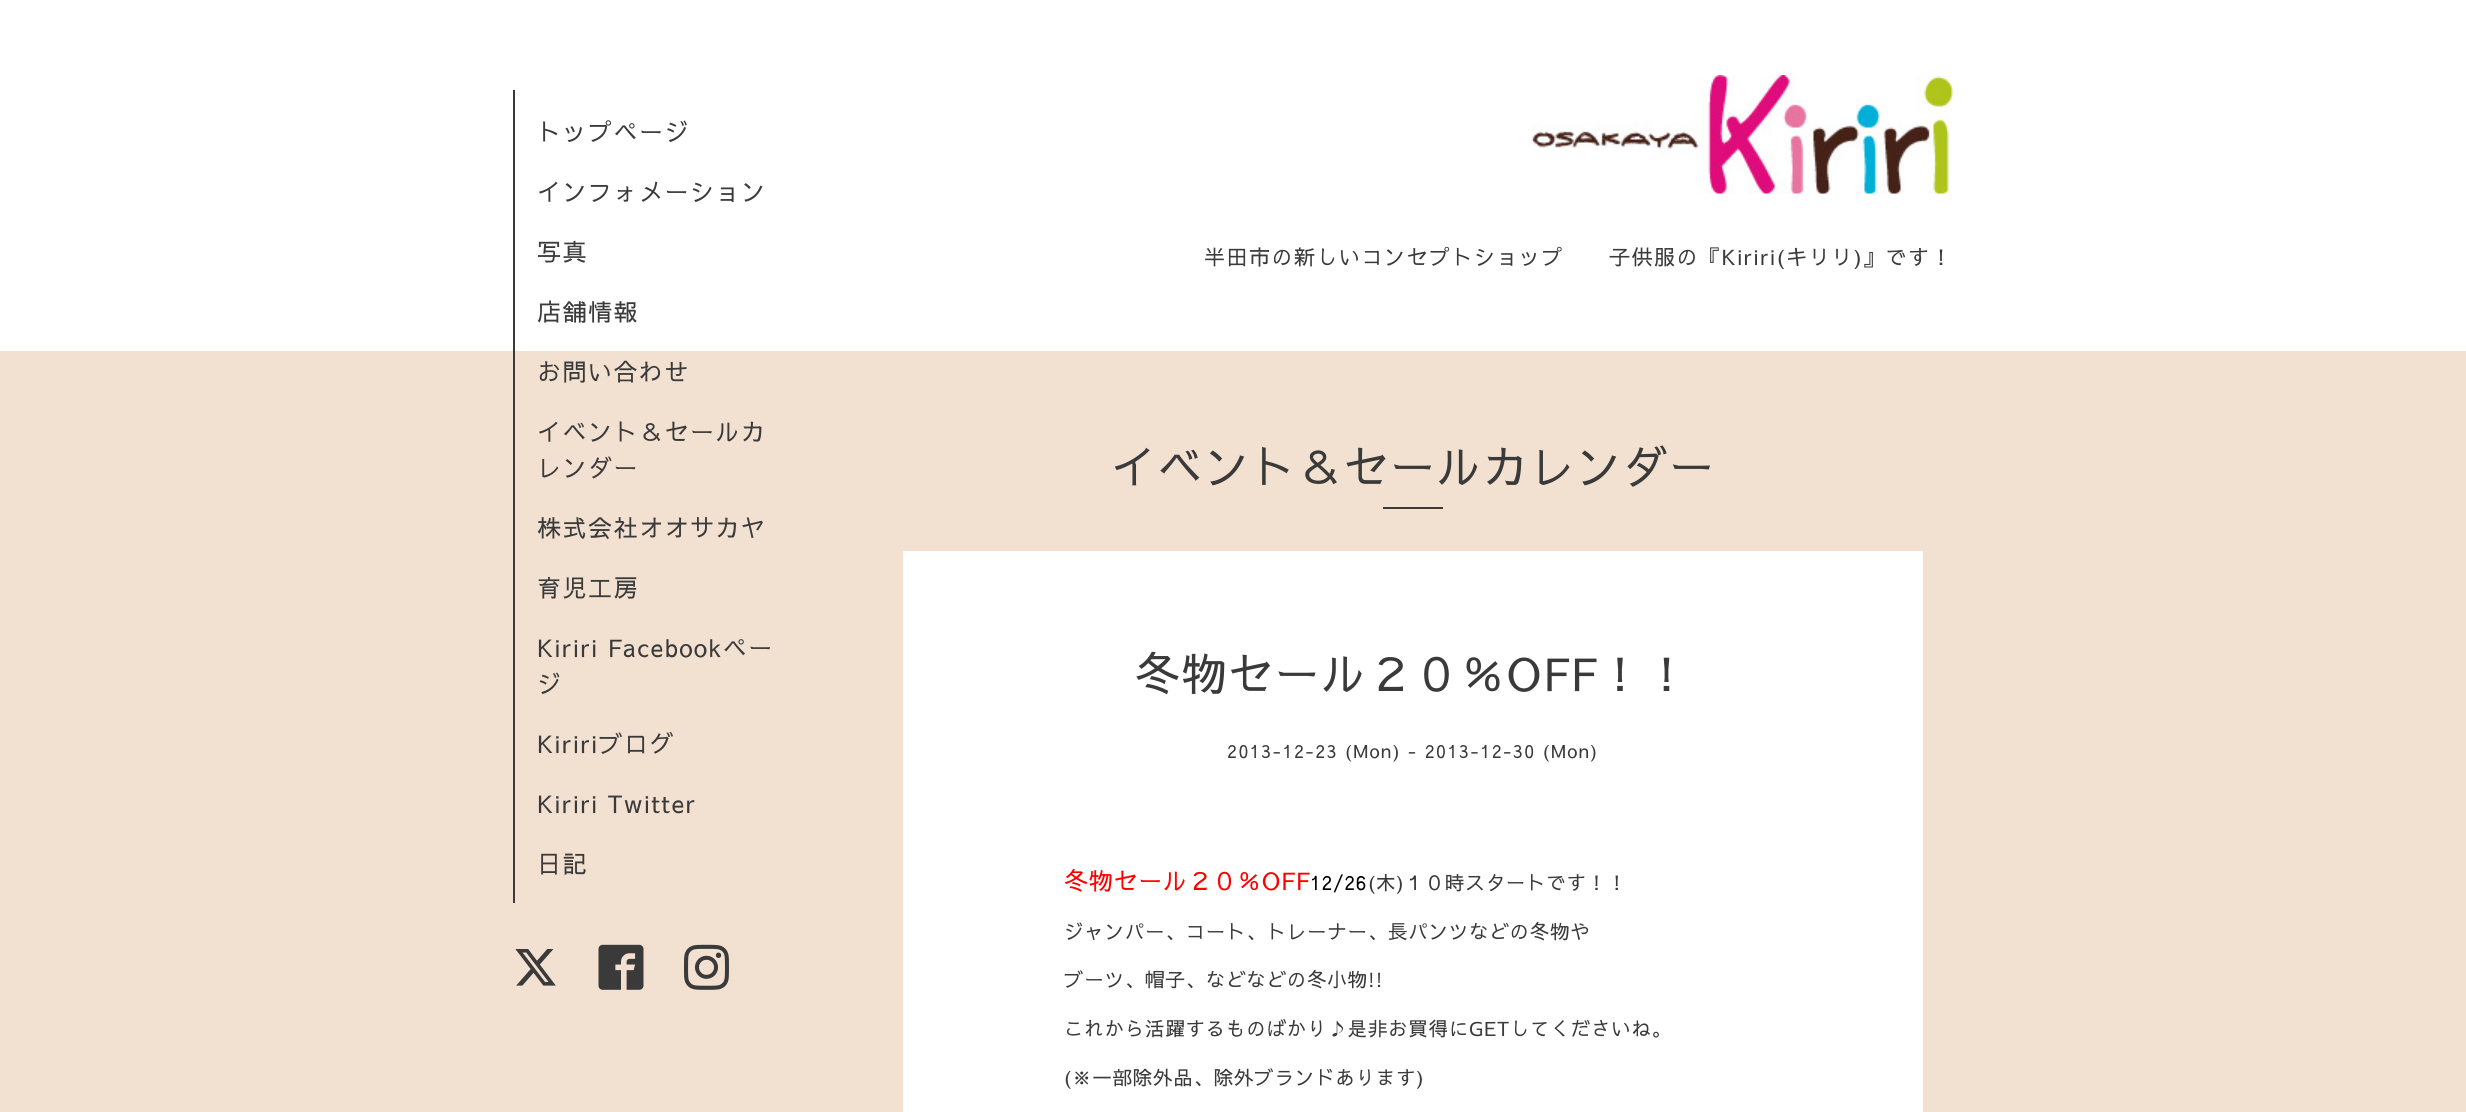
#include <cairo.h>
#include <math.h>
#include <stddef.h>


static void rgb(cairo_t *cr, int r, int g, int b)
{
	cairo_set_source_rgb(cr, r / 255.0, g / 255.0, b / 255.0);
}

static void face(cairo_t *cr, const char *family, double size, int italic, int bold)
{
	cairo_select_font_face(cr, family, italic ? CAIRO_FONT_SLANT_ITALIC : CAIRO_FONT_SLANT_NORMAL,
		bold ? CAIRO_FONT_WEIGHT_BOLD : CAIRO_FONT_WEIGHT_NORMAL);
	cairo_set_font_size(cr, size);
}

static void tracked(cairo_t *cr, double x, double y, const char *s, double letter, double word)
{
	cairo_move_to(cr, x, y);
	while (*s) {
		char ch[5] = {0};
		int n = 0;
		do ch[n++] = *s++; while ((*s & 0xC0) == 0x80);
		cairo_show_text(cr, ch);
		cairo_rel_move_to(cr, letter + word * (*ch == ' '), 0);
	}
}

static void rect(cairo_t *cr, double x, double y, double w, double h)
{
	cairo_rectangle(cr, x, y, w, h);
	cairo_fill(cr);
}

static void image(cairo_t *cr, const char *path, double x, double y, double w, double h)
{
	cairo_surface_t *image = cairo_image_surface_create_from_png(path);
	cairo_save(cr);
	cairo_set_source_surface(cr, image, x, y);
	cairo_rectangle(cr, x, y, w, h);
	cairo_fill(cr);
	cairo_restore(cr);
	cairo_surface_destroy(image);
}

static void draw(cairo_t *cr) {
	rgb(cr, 255, 255, 255);
	cairo_paint(cr);
	rgb(cr, 242, 225, 209);
	rect(cr, 0, 351, 2466, 761);
	rgb(cr, 58, 58, 58);
	rect(cr, 513, 90, 2, 813);
	face(cr, "Sawarabi Gothic", 24, 0, 0);
	tracked(cr, 537, 141, "トップページ", 1.5, 0);
	tracked(cr, 537, 201, "インフォメーション", 1.5, 0);
	tracked(cr, 537, 261, "写真", 1.5, 0);
	tracked(cr, 537, 321, "店舗情報", 1.5, 0);
	tracked(cr, 537, 381, "お問い合わせ", 1.5, 0);
	tracked(cr, 537, 441, "イベント＆セールカ", 1.5, 0);
	tracked(cr, 537, 477, "レンダー", 1.5, 0);
	tracked(cr, 537, 537, "株式会社オオサカヤ", 1.5, 0);
	tracked(cr, 537, 597, "育児工房", 1.5, 0);
	tracked(cr, 537, 657, "Kiriri Facebookペー", 1.5, 0);
	tracked(cr, 537, 693, "ジ", 1.5, 0);
	tracked(cr, 537, 753, "Kiririブログ", 1.5, 0);
	tracked(cr, 537, 813, "Kiriri Twitter", 1.5, 0);
	tracked(cr, 537, 873, "日記", 1.5, 0);
	image(cr, "image0.png", 515, 949, 41, 37);
	image(cr, "image1.png", 598, 944, 46, 46);
	image(cr, "image2.png", 684, 944, 45, 46);
	image(cr, "image3.png", 1531, 75, 422, 119);
	face(cr, "Sawarabi Gothic", 21, 0, 0);
	tracked(cr, 1204, 265, "半田市の新しいコンセプトショップ　　子供服の『Kiriri(キリリ)』です！", 1.5, 0);
	face(cr, "Sawarabi Gothic", 45, 0, 0);
	tracked(cr, 1111, 484, "イベント＆セールカレンダー", 1.5, 0);
	rect(cr, 1383, 507, 60, 2);
	rgb(cr, 255, 255, 255);
	rect(cr, 903, 551, 1020, 561);
	rgb(cr, 58, 58, 58);
	tracked(cr, 1135, 691, "冬物セール２０％OFF！！", 1.5, 0);
	face(cr, "Sawarabi Gothic", 18, 0, 0);
	tracked(cr, 1227, 758, "2013-12-23 (Mon) - 2013-12-30 (Mon)", 1.5, 0);
	face(cr, "Sawarabi Gothic", 24, 0, 0);
	rgb(cr, 255, 0, 0);
	tracked(cr, 1064, 890, "冬物セール２０％OFF", 0.75, 0);
	face(cr, "Sawarabi Gothic", 19.5, 0, 0);
	rgb(cr, 0, 0, 0);
	tracked(cr, 1310, 890, "12/26", 0.75, 0);
	rgb(cr, 58, 58, 58);
	tracked(cr, 1368, 890, "(木)１０時スタートです！！", 0.75, 0);
	tracked(cr, 1064, 939, "ジャンパー、コート、トレーナー、長パンツなどの冬物や", 0.75, 0);
	tracked(cr, 1064, 987, "ブーツ、帽子、などなどの冬小物!!", 0.75, 0);
	tracked(cr, 1064, 1036, "これから活躍するものばかり♪是非お買得にGETしてくださいね。", 0.75, 0);
	tracked(cr, 1064, 1085, "(※一部除外品、除外ブランドあります)", 0.75, 0);
}

int main(void) {
	cairo_surface_t *surface = cairo_image_surface_create(CAIRO_FORMAT_RGB24, 2466, 1112);
	cairo_t *cr = cairo_create(surface);
	cairo_font_options_t *options = cairo_font_options_create();
	cairo_font_options_set_hint_metrics(options, CAIRO_HINT_METRICS_OFF);
	cairo_font_options_set_hint_style(options, CAIRO_HINT_STYLE_NONE);
	cairo_set_font_options(cr, options);
	cairo_set_miter_limit(cr, 4);
	draw(cr);
	cairo_surface_write_to_png(surface, "render.png");
	cairo_font_options_destroy(options);
	cairo_destroy(cr);
	cairo_surface_destroy(surface);
	return 0;
}
